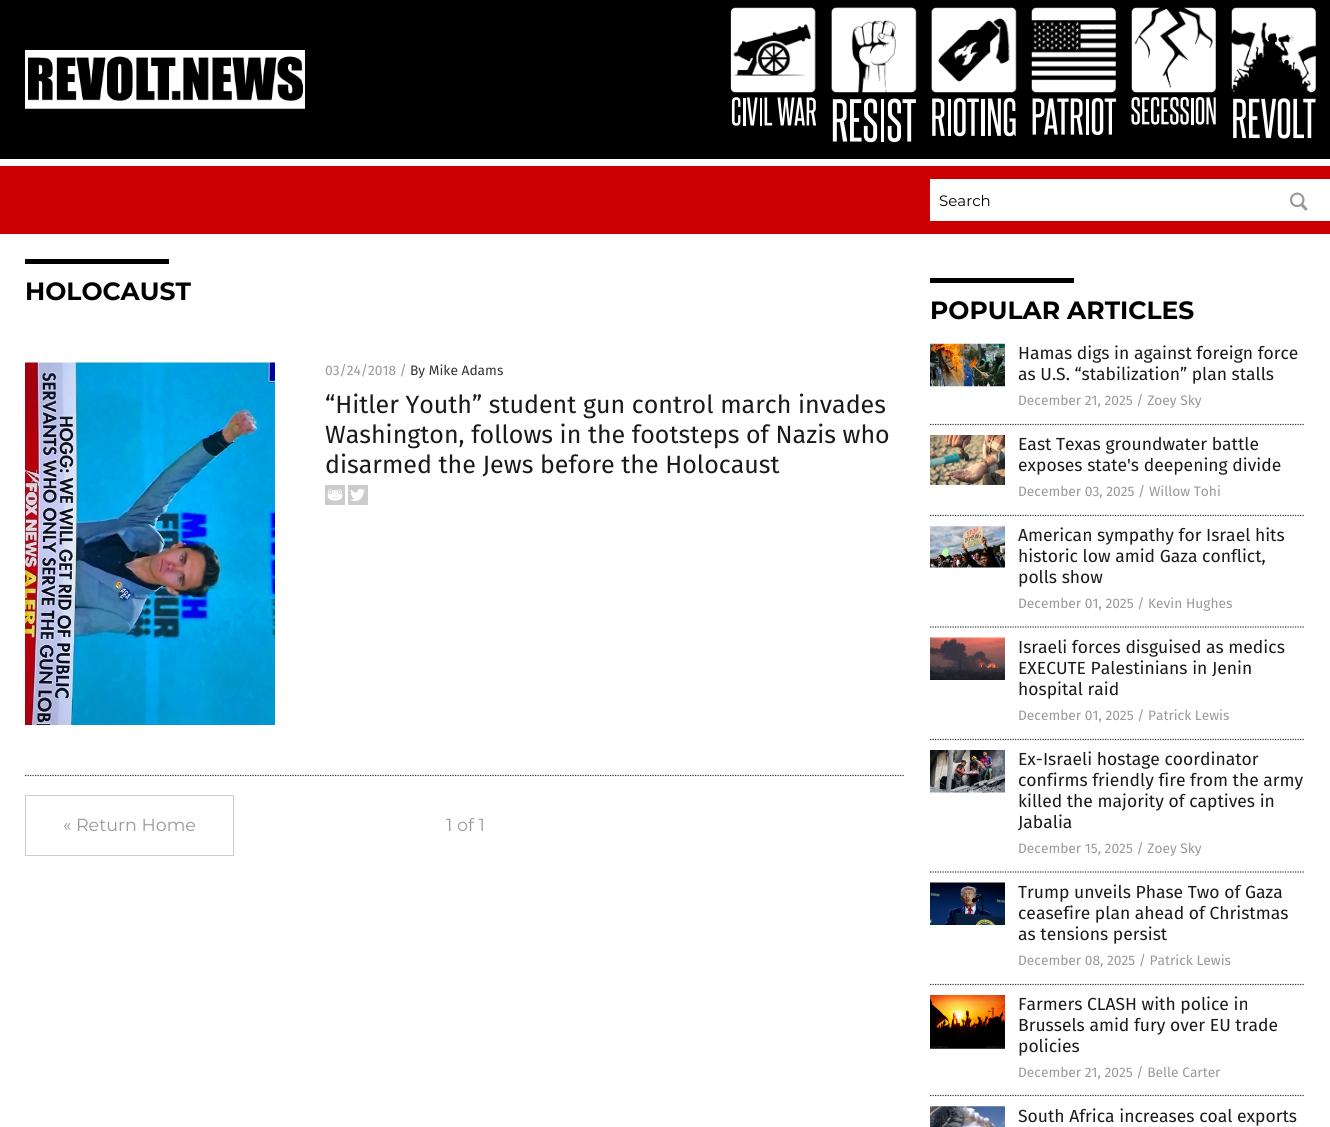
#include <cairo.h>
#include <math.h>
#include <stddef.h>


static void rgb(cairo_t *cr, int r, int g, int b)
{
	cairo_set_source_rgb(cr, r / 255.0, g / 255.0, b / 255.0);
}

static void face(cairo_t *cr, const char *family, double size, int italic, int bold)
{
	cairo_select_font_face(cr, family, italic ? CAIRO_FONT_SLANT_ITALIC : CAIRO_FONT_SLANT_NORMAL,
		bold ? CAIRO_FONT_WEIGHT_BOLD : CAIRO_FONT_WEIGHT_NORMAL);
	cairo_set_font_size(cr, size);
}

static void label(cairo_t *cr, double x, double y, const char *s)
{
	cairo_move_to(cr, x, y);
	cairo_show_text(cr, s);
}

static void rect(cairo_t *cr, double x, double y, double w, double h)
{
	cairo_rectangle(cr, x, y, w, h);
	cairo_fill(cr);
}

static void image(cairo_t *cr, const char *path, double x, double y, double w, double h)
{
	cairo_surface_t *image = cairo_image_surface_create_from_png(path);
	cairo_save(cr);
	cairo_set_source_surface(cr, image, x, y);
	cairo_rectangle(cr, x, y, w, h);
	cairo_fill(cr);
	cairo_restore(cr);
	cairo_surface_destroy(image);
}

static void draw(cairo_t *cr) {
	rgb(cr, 204, 0, 0);
	cairo_paint(cr);
	rgb(cr, 0, 0, 0);
	rect(cr, 0, 0, 1330, 159);
	image(cr, "image0.png", 25, 50, 280, 59);
	image(cr, "image1.png", 730, 7, 86, 86);
	image(cr, "image2.png", 731, 97, 85, 29);
	image(cr, "image3.png", 831, 7, 86, 86);
	image(cr, "image4.png", 832, 98, 84, 45);
	image(cr, "image5.png", 931, 7, 86, 86);
	image(cr, "image6.png", 932, 98, 84, 39);
	image(cr, "image7.png", 1031, 7, 85, 86);
	image(cr, "image8.png", 1032, 98, 85, 37);
	image(cr, "image9.png", 1131, 7, 85, 86);
	image(cr, "image10.png", 1131, 97, 85, 28);
	image(cr, "image11.png", 1231, 7, 85, 86);
	image(cr, "image12.png", 1233, 98, 83, 41);
	rgb(cr, 255, 255, 255);
	rect(cr, 0, 159, 1330, 7);
	rect(cr, 930, 179, 400, 42);
	face(cr, "Montserrat", 15, 0, 0);
	rgb(cr, 0, 0, 0);
	label(cr, 939, 206, "Search");
	image(cr, "image13.png", 1289, 192, 19, 19);
	rgb(cr, 255, 255, 255);
	rect(cr, 0, 234, 1330, 893);
	rgb(cr, 0, 0, 0);
	rect(cr, 25, 259, 144, 5);
	face(cr, "Montserrat", 25, 0, 1);
	label(cr, 25, 300, "HOLOCAUST");
	cairo_new_path(cr);
	cairo_move_to(cr, 25, 775.5);
	cairo_line_to(cr, 905, 775.5);
	rgb(cr, 52, 52, 52);
	cairo_set_line_width(cr, 1.2);
	cairo_set_dash(cr, (double[]){1.25, 1.25}, 2, 0);
	cairo_stroke(cr);
	image(cr, "image14.png", 25, 362, 250, 363);
	face(cr, "Fira Sans", 13.75, 0, 0);
	rgb(cr, 153, 153, 153);
	label(cr, 325, 375, "03/24/2018 /");
	rgb(cr, 51, 51, 51);
	label(cr, 410, 375, "By Mike Adams");
	face(cr, "Fira Sans", 25, 0, 0);
	rgb(cr, 26, 26, 26);
	label(cr, 325, 413, "“Hitler Youth” student gun control march invades");
	label(cr, 325, 443, "Washington, follows in the footsteps of Nazis who");
	label(cr, 325, 473, "disarmed the Jews before the Holocaust");
	image(cr, "image15.png", 325, 485, 20, 20);
	image(cr, "image16.png", 348, 485, 20, 20);
	cairo_rectangle(cr, 25.5, 795.5, 208, 60);
	rgb(cr, 204, 204, 204);
	cairo_set_line_width(cr, 1);
	cairo_set_dash(cr, NULL, 0, 0);
	cairo_stroke(cr);
	face(cr, "Montserrat", 17.5, 0, 0);
	rgb(cr, 153, 153, 153);
	label(cr, 63, 831, "« Return Home");
	label(cr, 446, 831, "1 of 1");
	rgb(cr, 0, 0, 0);
	rect(cr, 930, 278, 144, 5);
	face(cr, "Montserrat", 25, 0, 1);
	label(cr, 930, 319, "POPULAR ARTICLES");
	cairo_new_path(cr);
	cairo_move_to(cr, 930, 424.5);
	cairo_line_to(cr, 1305, 424.5);
	rgb(cr, 52, 52, 52);
	cairo_set_line_width(cr, 1.2);
	cairo_set_dash(cr, (double[]){1.25, 1.25}, 2, 0);
	cairo_stroke(cr);
	image(cr, "image17.png", 930, 343, 75, 44);
	face(cr, "Fira Sans", 17.5, 0, 0);
	rgb(cr, 26, 26, 26);
	label(cr, 1018, 359, "Hamas digs in against foreign force");
	label(cr, 1018, 380, "as U.S. “stabilization” plan stalls");
	face(cr, "Fira Sans", 13.75, 0, 0);
	rgb(cr, 153, 153, 153);
	label(cr, 1018, 405, "December 21, 2025 / Zoey Sky");
	cairo_new_path(cr);
	cairo_move_to(cr, 930, 515.5);
	cairo_line_to(cr, 1305, 515.5);
	rgb(cr, 52, 52, 52);
	cairo_stroke(cr);
	image(cr, "image18.png", 930, 435, 75, 50);
	face(cr, "Fira Sans", 17.5, 0, 0);
	rgb(cr, 26, 26, 26);
	label(cr, 1018, 450, "East Texas groundwater battle");
	label(cr, 1018, 471, "exposes state's deepening divide");
	face(cr, "Fira Sans", 13.75, 0, 0);
	rgb(cr, 153, 153, 153);
	label(cr, 1018, 496, "December 03, 2025 / Willow Tohi");
	cairo_new_path(cr);
	cairo_move_to(cr, 930, 627);
	cairo_line_to(cr, 1305, 627);
	rgb(cr, 52, 52, 52);
	cairo_stroke(cr);
	image(cr, "image19.png", 930, 526, 75, 42);
	face(cr, "Fira Sans", 17.5, 0, 0);
	rgb(cr, 26, 26, 26);
	label(cr, 1018, 541, "American sympathy for Israel hits");
	label(cr, 1018, 562, "historic low amid Gaza conflict,");
	label(cr, 1018, 583, "polls show");
	face(cr, "Fira Sans", 13.75, 0, 0);
	rgb(cr, 153, 153, 153);
	label(cr, 1018, 608, "December 01, 2025 / Kevin Hughes");
	cairo_new_path(cr);
	cairo_move_to(cr, 930, 739.5);
	cairo_line_to(cr, 1305, 739.5);
	rgb(cr, 52, 52, 52);
	cairo_stroke(cr);
	image(cr, "image20.png", 930, 637, 75, 43);
	face(cr, "Fira Sans", 17.5, 0, 0);
	rgb(cr, 26, 26, 26);
	label(cr, 1018, 653, "Israeli forces disguised as medics");
	label(cr, 1018, 674, "EXECUTE Palestinians in Jenin");
	label(cr, 1018, 695, "hospital raid");
	face(cr, "Fira Sans", 13.75, 0, 0);
	rgb(cr, 153, 153, 153);
	label(cr, 1018, 720, "December 01, 2025 / Patrick Lewis");
	cairo_new_path(cr);
	cairo_move_to(cr, 930, 872);
	cairo_line_to(cr, 1305, 872);
	rgb(cr, 52, 52, 52);
	cairo_stroke(cr);
	image(cr, "image21.png", 930, 750, 75, 43);
	face(cr, "Fira Sans", 17.5, 0, 0);
	rgb(cr, 26, 26, 26);
	label(cr, 1018, 765, "Ex-Israeli hostage coordinator");
	label(cr, 1018, 786, "confirms friendly fire from the army");
	label(cr, 1018, 807, "killed the majority of captives in");
	label(cr, 1018, 828, "Jabalia");
	face(cr, "Fira Sans", 13.75, 0, 0);
	rgb(cr, 153, 153, 153);
	label(cr, 1018, 853, "December 15, 2025 / Zoey Sky");
	cairo_new_path(cr);
	cairo_move_to(cr, 930, 984.5);
	cairo_line_to(cr, 1305, 984.5);
	rgb(cr, 52, 52, 52);
	cairo_stroke(cr);
	image(cr, "image22.png", 930, 882, 75, 43);
	face(cr, "Fira Sans", 17.5, 0, 0);
	rgb(cr, 26, 26, 26);
	label(cr, 1018, 898, "Trump unveils Phase Two of Gaza");
	label(cr, 1018, 919, "ceasefire plan ahead of Christmas");
	label(cr, 1018, 940, "as tensions persist");
	face(cr, "Fira Sans", 13.75, 0, 0);
	rgb(cr, 153, 153, 153);
	label(cr, 1018, 965, "December 08, 2025 / Patrick Lewis");
	cairo_new_path(cr);
	cairo_move_to(cr, 930, 1095.5);
	cairo_line_to(cr, 1305, 1095.5);
	rgb(cr, 52, 52, 52);
	cairo_stroke(cr);
	image(cr, "image23.png", 930, 995, 75, 54);
	face(cr, "Fira Sans", 17.5, 0, 0);
	rgb(cr, 26, 26, 26);
	label(cr, 1018, 1010, "Farmers CLASH with police in");
	label(cr, 1018, 1031, "Brussels amid fury over EU trade");
	label(cr, 1018, 1052, "policies");
	face(cr, "Fira Sans", 13.75, 0, 0);
	rgb(cr, 153, 153, 153);
	label(cr, 1018, 1077, "December 21, 2025 / Belle Carter");
	image(cr, "image24.png", 930, 1106, 75, 21);
	face(cr, "Fira Sans", 17.5, 0, 0);
	rgb(cr, 26, 26, 26);
	label(cr, 1018, 1122, "South Africa increases coal exports");
}

int main(void) {
	cairo_surface_t *surface = cairo_image_surface_create(CAIRO_FORMAT_RGB24, 1330, 1127);
	cairo_t *cr = cairo_create(surface);
	cairo_font_options_t *options = cairo_font_options_create();
	cairo_font_options_set_hint_metrics(options, CAIRO_HINT_METRICS_OFF);
	cairo_font_options_set_hint_style(options, CAIRO_HINT_STYLE_NONE);
	cairo_set_font_options(cr, options);
	cairo_set_miter_limit(cr, 4);
	draw(cr);
	cairo_surface_write_to_png(surface, "render.png");
	cairo_font_options_destroy(options);
	cairo_destroy(cr);
	cairo_surface_destroy(surface);
	return 0;
}
